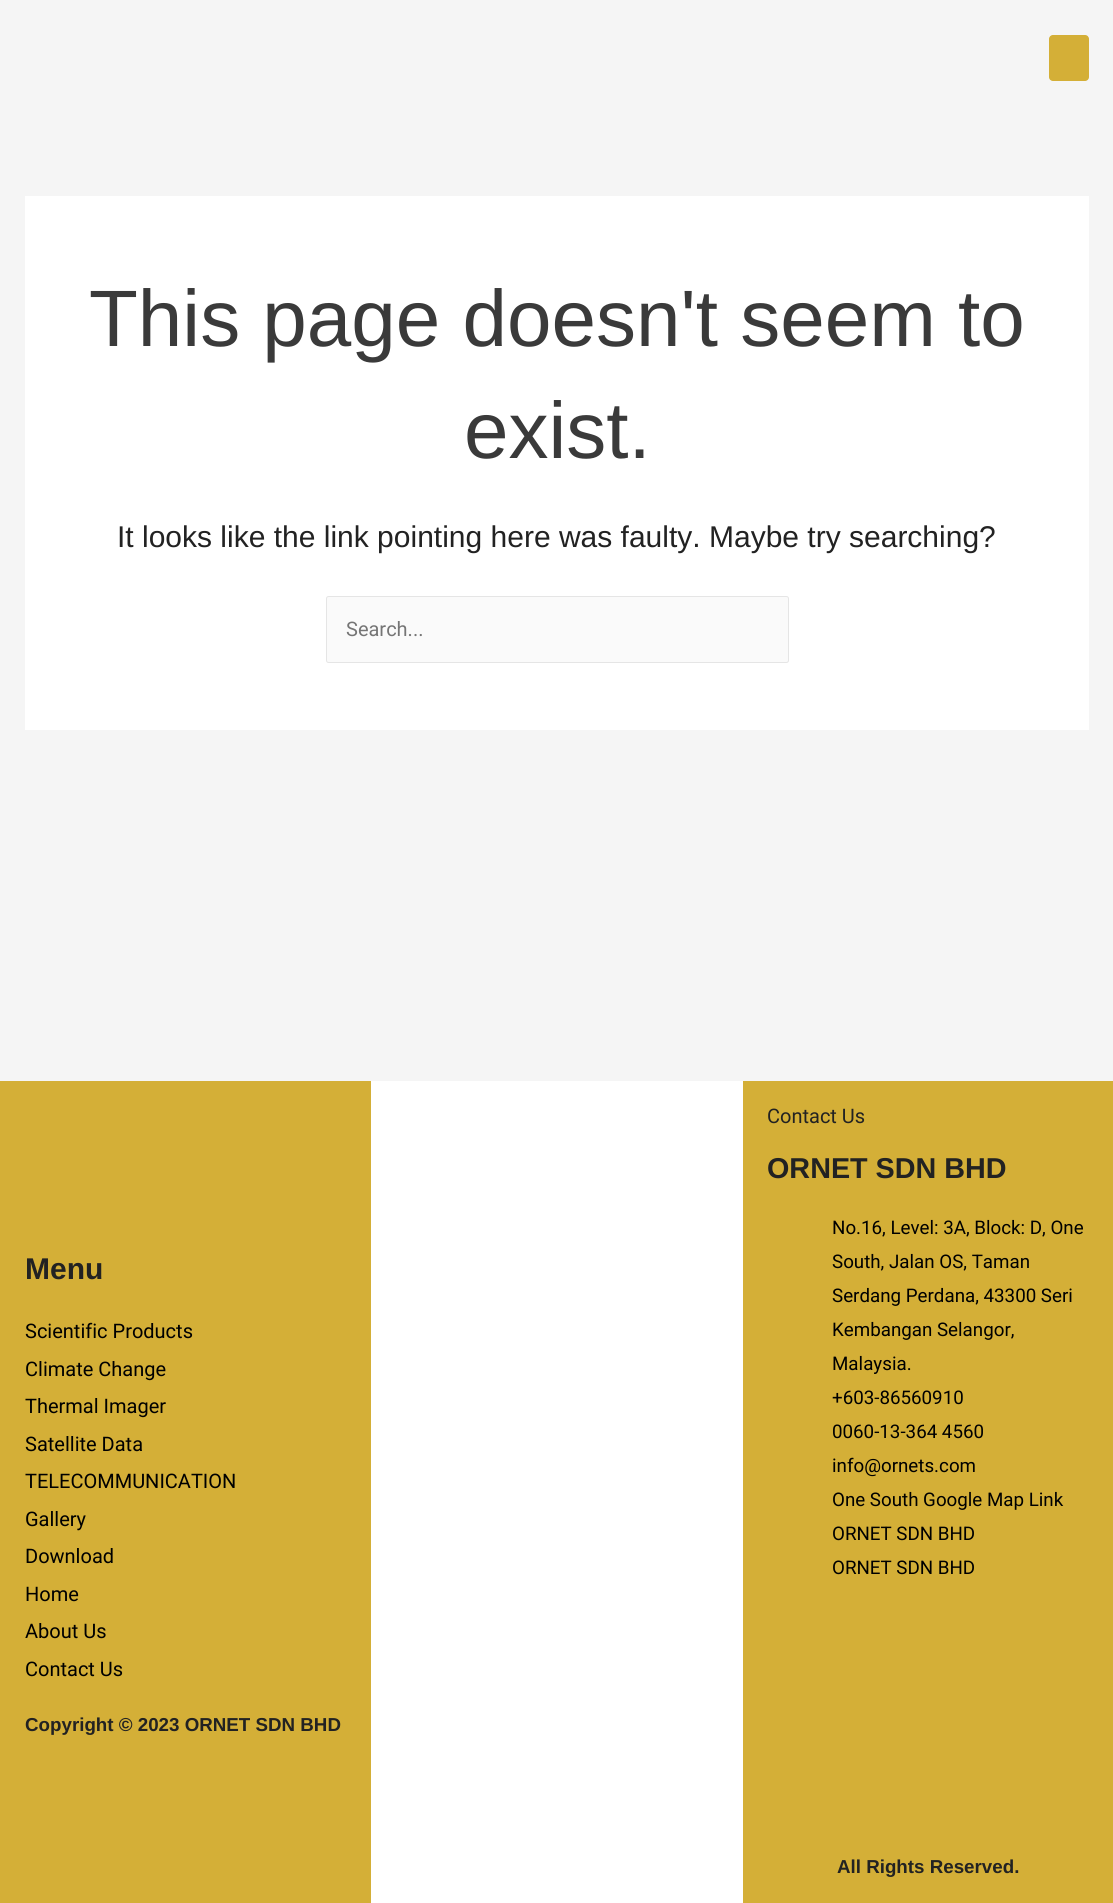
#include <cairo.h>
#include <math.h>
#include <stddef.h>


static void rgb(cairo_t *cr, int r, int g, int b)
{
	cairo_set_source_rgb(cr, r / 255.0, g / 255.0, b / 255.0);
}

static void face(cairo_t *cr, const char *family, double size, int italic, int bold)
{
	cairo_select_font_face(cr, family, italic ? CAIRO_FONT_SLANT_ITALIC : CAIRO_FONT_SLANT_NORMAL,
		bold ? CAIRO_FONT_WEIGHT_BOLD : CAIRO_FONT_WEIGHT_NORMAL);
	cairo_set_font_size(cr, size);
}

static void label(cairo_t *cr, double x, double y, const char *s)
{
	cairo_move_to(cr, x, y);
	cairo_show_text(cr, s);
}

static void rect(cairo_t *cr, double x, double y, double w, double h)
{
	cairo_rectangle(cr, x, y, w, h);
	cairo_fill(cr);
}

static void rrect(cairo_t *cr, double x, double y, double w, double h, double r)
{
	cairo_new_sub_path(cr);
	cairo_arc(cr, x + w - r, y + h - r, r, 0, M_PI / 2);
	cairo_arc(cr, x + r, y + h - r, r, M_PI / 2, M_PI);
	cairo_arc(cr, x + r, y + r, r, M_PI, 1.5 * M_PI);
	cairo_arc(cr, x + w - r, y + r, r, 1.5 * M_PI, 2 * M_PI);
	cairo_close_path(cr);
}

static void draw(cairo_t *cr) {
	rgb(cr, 245, 245, 245);
	cairo_paint(cr);
	rgb(cr, 212, 175, 55);
	rrect(cr, 1049, 35, 40, 46, 4);
	cairo_fill(cr);
	rgb(cr, 255, 255, 255);
	rect(cr, 25, 196, 1064, 534);
	face(cr, "Liberation Sans", 80, 0, 0);
	rgb(cr, 58, 58, 58);
	label(cr, 89, 346, "This page doesn't seem to");
	label(cr, 464, 458, "exist.");
	face(cr, "Liberation Sans", 30, 0, 0);
	rgb(cr, 34, 34, 34);
	label(cr, 117, 547, "It looks like the link pointing here was faulty. Maybe try searching?");
	rgb(cr, 250, 250, 250);
	rrect(cr, 326.5, 596.5, 462, 66, 2);
	cairo_fill_preserve(cr);
	rgb(cr, 229, 229, 229);
	cairo_set_line_width(cr, 1);
	cairo_stroke(cr);
	face(cr, "Roboto", 20, 0, 0);
	rgb(cr, 117, 117, 117);
	label(cr, 346, 636, "Search...");
	rgb(cr, 212, 175, 55);
	rect(cr, 0, 1081, 1113, 822);
	face(cr, "Liberation Sans", 30, 0, 1);
	rgb(cr, 34, 34, 34);
	label(cr, 25, 1279, "Menu");
	face(cr, "Roboto", 20, 0, 0);
	rgb(cr, 0, 0, 0);
	label(cr, 25, 1338, "Scientific Products");
	label(cr, 25, 1376, "Climate Change");
	label(cr, 25, 1413, "Thermal Imager");
	label(cr, 25, 1451, "Satellite Data");
	label(cr, 25, 1488, "TELECOMMUNICATION");
	label(cr, 25, 1526, "Gallery");
	label(cr, 25, 1563, "Download");
	label(cr, 25, 1601, "Home");
	label(cr, 25, 1638, "About Us");
	label(cr, 25, 1676, "Contact Us");
	face(cr, "Liberation Sans", 18.75, 0, 1);
	rgb(cr, 34, 34, 34);
	label(cr, 25, 1731, "Copyright © 2023 ORNET SDN BHD");
	rgb(cr, 255, 255, 255);
	rect(cr, 371, 1081, 372, 822);
	face(cr, "Roboto", 20, 0, 0);
	rgb(cr, 34, 34, 34);
	label(cr, 767, 1123, "Contact Us");
	face(cr, "Liberation Sans", 28.75, 0, 1);
	label(cr, 767, 1178, "ORNET SDN BHD");
	face(cr, "Roboto", 18.75, 0, 0);
	rgb(cr, 0, 0, 0);
	label(cr, 832, 1234, "No.16, Level: 3A, Block: D, One");
	label(cr, 832, 1268, "South, Jalan OS, Taman");
	label(cr, 832, 1302, "Serdang Perdana, 43300 Seri");
	label(cr, 832, 1336, "Kembangan Selangor,");
	label(cr, 832, 1370, "Malaysia.");
	label(cr, 832, 1404, "+603-86560910");
	label(cr, 832, 1438, "0060-13-364 4560");
	label(cr, 832, 1472, "info@ornets.com");
	label(cr, 832, 1506, "One South Google Map Link");
	label(cr, 832, 1540, "ORNET SDN BHD");
	label(cr, 832, 1574, "ORNET SDN BHD");
	face(cr, "Liberation Sans", 18.75, 0, 1);
	rgb(cr, 34, 34, 34);
	label(cr, 837, 1873, "All Rights Reserved.");
}

int main(void) {
	cairo_surface_t *surface = cairo_image_surface_create(CAIRO_FORMAT_RGB24, 1113, 1903);
	cairo_t *cr = cairo_create(surface);
	cairo_font_options_t *options = cairo_font_options_create();
	cairo_font_options_set_hint_metrics(options, CAIRO_HINT_METRICS_OFF);
	cairo_font_options_set_hint_style(options, CAIRO_HINT_STYLE_NONE);
	cairo_set_font_options(cr, options);
	cairo_set_miter_limit(cr, 4);
	draw(cr);
	cairo_surface_write_to_png(surface, "render.png");
	cairo_font_options_destroy(options);
	cairo_destroy(cr);
	cairo_surface_destroy(surface);
	return 0;
}
